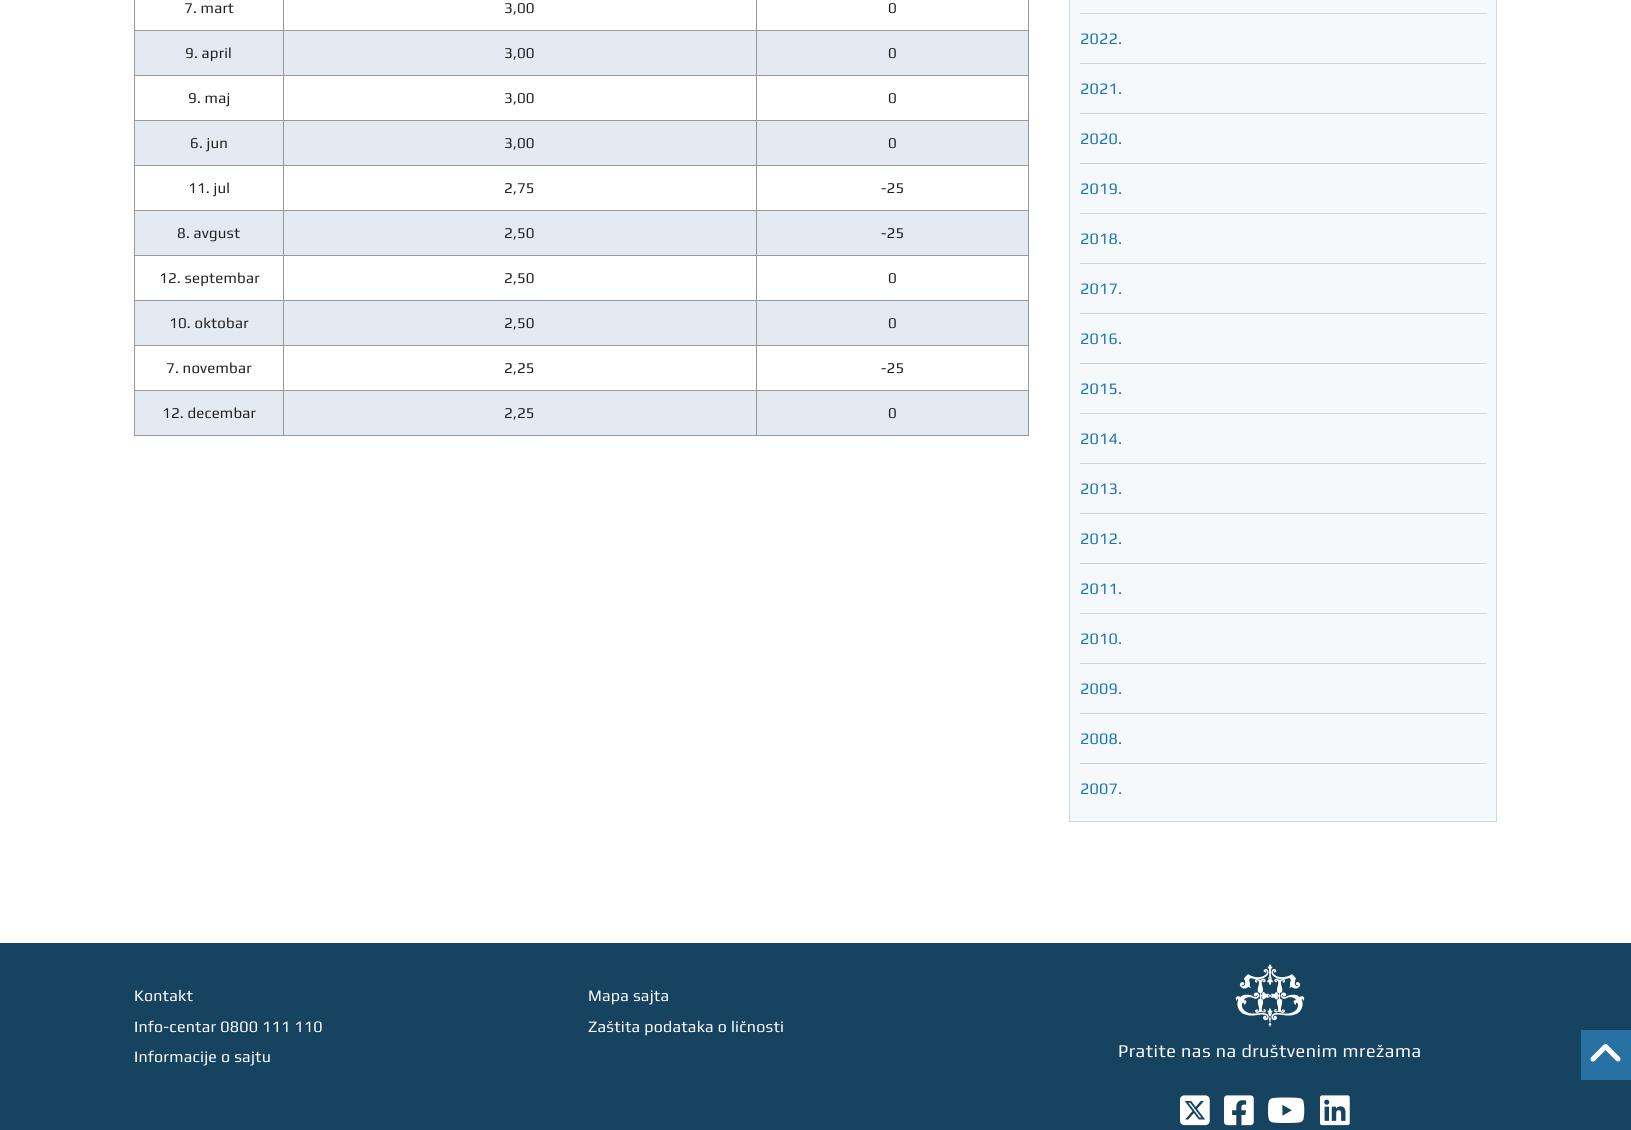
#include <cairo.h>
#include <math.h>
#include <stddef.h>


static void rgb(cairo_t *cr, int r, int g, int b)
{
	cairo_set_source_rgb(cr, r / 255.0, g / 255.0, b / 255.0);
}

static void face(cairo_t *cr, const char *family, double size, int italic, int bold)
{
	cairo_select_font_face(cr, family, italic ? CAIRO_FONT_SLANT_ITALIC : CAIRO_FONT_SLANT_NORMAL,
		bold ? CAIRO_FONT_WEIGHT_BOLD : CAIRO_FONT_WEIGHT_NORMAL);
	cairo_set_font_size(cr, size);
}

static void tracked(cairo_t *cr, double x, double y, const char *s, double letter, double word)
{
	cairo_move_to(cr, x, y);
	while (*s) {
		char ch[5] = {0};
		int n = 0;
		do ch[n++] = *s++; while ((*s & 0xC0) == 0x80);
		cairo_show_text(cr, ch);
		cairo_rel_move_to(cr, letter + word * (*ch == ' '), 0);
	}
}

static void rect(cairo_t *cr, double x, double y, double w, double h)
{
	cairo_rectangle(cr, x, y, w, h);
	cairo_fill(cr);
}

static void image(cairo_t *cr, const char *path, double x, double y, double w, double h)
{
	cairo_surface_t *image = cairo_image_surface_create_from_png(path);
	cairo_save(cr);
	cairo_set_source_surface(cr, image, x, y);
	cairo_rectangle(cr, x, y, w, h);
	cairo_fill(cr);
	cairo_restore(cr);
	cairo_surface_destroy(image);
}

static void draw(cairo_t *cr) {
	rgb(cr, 255, 255, 255);
	cairo_paint(cr);
	rgb(cr, 153, 153, 153);
	rect(cr, 1028, 0, 1, 436);
	rect(cr, 134, 435, 895, 1);
	rect(cr, 134, 0, 1, 436);
	face(cr, "Play", 15, 0, 0);
	rgb(cr, 32, 32, 32);
	tracked(cr, 184, 13, "7. mart", 0.2, 0);
	rgb(cr, 153, 153, 153);
	rect(cr, 756, 30, 273, 1);
	rgb(cr, 228, 234, 241);
	rect(cr, 135, 31, 893, 44);
	rgb(cr, 153, 153, 153);
	rect(cr, 756, 75, 273, 1);
	rect(cr, 756, 120, 273, 1);
	rgb(cr, 228, 234, 241);
	rect(cr, 135, 121, 893, 44);
	rgb(cr, 153, 153, 153);
	rect(cr, 756, 165, 273, 1);
	rect(cr, 756, 210, 273, 1);
	rgb(cr, 228, 234, 241);
	rect(cr, 135, 211, 893, 44);
	rgb(cr, 153, 153, 153);
	rect(cr, 756, 255, 273, 1);
	rect(cr, 756, 300, 273, 1);
	rgb(cr, 228, 234, 241);
	rect(cr, 135, 301, 893, 44);
	rgb(cr, 153, 153, 153);
	rect(cr, 756, 345, 273, 1);
	rect(cr, 756, 390, 273, 1);
	rgb(cr, 228, 234, 241);
	rect(cr, 135, 391, 893, 44);
	rgb(cr, 153, 153, 153);
	rect(cr, 756, 390, 1, 46);
	rect(cr, 283, 390, 474, 1);
	rect(cr, 756, 345, 1, 46);
	rect(cr, 283, 345, 474, 1);
	rect(cr, 756, 300, 1, 46);
	rect(cr, 283, 300, 474, 1);
	rect(cr, 756, 255, 1, 46);
	rect(cr, 283, 255, 474, 1);
	rect(cr, 756, 210, 1, 46);
	rect(cr, 283, 210, 474, 1);
	rect(cr, 756, 165, 1, 46);
	rect(cr, 283, 165, 474, 1);
	rect(cr, 756, 120, 1, 46);
	rect(cr, 283, 120, 474, 1);
	rect(cr, 756, 75, 1, 46);
	rect(cr, 283, 75, 474, 1);
	rect(cr, 756, 30, 1, 46);
	rect(cr, 283, 30, 474, 1);
	rect(cr, 283, 390, 1, 46);
	rect(cr, 134, 390, 150, 1);
	rect(cr, 283, 345, 1, 46);
	rect(cr, 134, 345, 150, 1);
	rect(cr, 283, 300, 1, 46);
	rect(cr, 134, 300, 150, 1);
	rect(cr, 283, 255, 1, 46);
	rect(cr, 134, 255, 150, 1);
	rect(cr, 283, 210, 1, 46);
	rect(cr, 134, 210, 150, 1);
	rect(cr, 283, 165, 1, 46);
	rect(cr, 134, 165, 150, 1);
	rect(cr, 283, 120, 1, 46);
	rect(cr, 134, 120, 150, 1);
	rect(cr, 283, 75, 1, 46);
	rect(cr, 134, 75, 150, 1);
	rect(cr, 283, 30, 1, 46);
	rect(cr, 134, 30, 150, 1);
	rect(cr, 283, 0, 1, 31);
	rgb(cr, 32, 32, 32);
	tracked(cr, 504, 13, "3,00", 0.2, 0);
	rgb(cr, 153, 153, 153);
	rect(cr, 756, 0, 1, 31);
	rgb(cr, 32, 32, 32);
	tracked(cr, 888, 13, "0", 0.2, 0);
	tracked(cr, 185, 58, "9. april", 0.2, 0);
	tracked(cr, 504, 58, "3,00", 0.2, 0);
	tracked(cr, 888, 58, "0", 0.2, 0);
	tracked(cr, 188, 103, "9. maj", 0.2, 0);
	tracked(cr, 504, 103, "3,00", 0.2, 0);
	tracked(cr, 888, 103, "0", 0.2, 0);
	tracked(cr, 190, 148, "6. jun", 0.2, 0);
	tracked(cr, 504, 148, "3,00", 0.2, 0);
	tracked(cr, 888, 148, "0", 0.2, 0);
	tracked(cr, 188, 193, "11. jul", 0.2, 0);
	tracked(cr, 504, 193, "2,75", 0.2, 0);
	tracked(cr, 881, 193, "-25", 0.2, 0);
	tracked(cr, 177, 238, "8. avgust", 0.2, 0);
	tracked(cr, 504, 238, "2,50", 0.2, 0);
	tracked(cr, 881, 238, "-25", 0.2, 0);
	tracked(cr, 159, 283, "12. septembar", 0.2, 0);
	tracked(cr, 504, 283, "2,50", 0.2, 0);
	tracked(cr, 888, 283, "0", 0.2, 0);
	tracked(cr, 169, 328, "10. oktobar", 0.2, 0);
	tracked(cr, 504, 328, "2,50", 0.2, 0);
	tracked(cr, 888, 328, "0", 0.2, 0);
	tracked(cr, 166, 373, "7. novembar", 0.2, 0);
	tracked(cr, 504, 373, "2,25", 0.2, 0);
	tracked(cr, 881, 373, "-25", 0.2, 0);
	tracked(cr, 162, 418, "12. decembar", 0.2, 0);
	tracked(cr, 504, 418, "2,25", 0.2, 0);
	tracked(cr, 888, 418, "0", 0.2, 0);
	rgb(cr, 245, 249, 252);
	cairo_rectangle(cr, 1069.5, -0.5, 427, 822);
	cairo_fill_preserve(cr);
	rgb(cr, 206, 216, 223);
	cairo_set_line_width(cr, 1);
	cairo_stroke(cr);
	rgb(cr, 211, 211, 211);
	rect(cr, 1080, 13, 406, 1);
	rect(cr, 1080, 63, 406, 1);
	face(cr, "Play", 16, 0, 0);
	rgb(cr, 24, 116, 183);
	tracked(cr, 1080, 44, "2022.", 0.2, 0);
	rgb(cr, 211, 211, 211);
	rect(cr, 1080, 113, 406, 1);
	rgb(cr, 24, 116, 183);
	tracked(cr, 1080, 94, "2021.", 0.2, 0);
	rgb(cr, 211, 211, 211);
	rect(cr, 1080, 163, 406, 1);
	rgb(cr, 24, 116, 183);
	tracked(cr, 1080, 144, "2020.", 0.2, 0);
	rgb(cr, 211, 211, 211);
	rect(cr, 1080, 213, 406, 1);
	rgb(cr, 24, 116, 183);
	tracked(cr, 1080, 194, "2019.", 0.2, 0);
	rgb(cr, 211, 211, 211);
	rect(cr, 1080, 263, 406, 1);
	rgb(cr, 24, 116, 183);
	tracked(cr, 1080, 244, "2018.", 0.2, 0);
	rgb(cr, 211, 211, 211);
	rect(cr, 1080, 313, 406, 1);
	rgb(cr, 24, 116, 183);
	tracked(cr, 1080, 294, "2017.", 0.2, 0);
	rgb(cr, 211, 211, 211);
	rect(cr, 1080, 363, 406, 1);
	rgb(cr, 24, 116, 183);
	tracked(cr, 1080, 344, "2016.", 0.2, 0);
	rgb(cr, 211, 211, 211);
	rect(cr, 1080, 413, 406, 1);
	rgb(cr, 24, 116, 183);
	tracked(cr, 1080, 394, "2015.", 0.2, 0);
	rgb(cr, 211, 211, 211);
	rect(cr, 1080, 463, 406, 1);
	rgb(cr, 24, 116, 183);
	tracked(cr, 1080, 444, "2014.", 0.2, 0);
	rgb(cr, 211, 211, 211);
	rect(cr, 1080, 513, 406, 1);
	rgb(cr, 24, 116, 183);
	tracked(cr, 1080, 494, "2013.", 0.2, 0);
	rgb(cr, 211, 211, 211);
	rect(cr, 1080, 563, 406, 1);
	rgb(cr, 24, 116, 183);
	tracked(cr, 1080, 544, "2012.", 0.2, 0);
	rgb(cr, 211, 211, 211);
	rect(cr, 1080, 613, 406, 1);
	rgb(cr, 24, 116, 183);
	tracked(cr, 1080, 594, "2011.", 0.2, 0);
	rgb(cr, 211, 211, 211);
	rect(cr, 1080, 663, 406, 1);
	rgb(cr, 24, 116, 183);
	tracked(cr, 1080, 644, "2010.", 0.2, 0);
	rgb(cr, 211, 211, 211);
	rect(cr, 1080, 713, 406, 1);
	rgb(cr, 24, 116, 183);
	tracked(cr, 1080, 694, "2009.", 0.2, 0);
	rgb(cr, 211, 211, 211);
	rect(cr, 1080, 763, 406, 1);
	rgb(cr, 24, 116, 183);
	tracked(cr, 1080, 744, "2008.", 0.2, 0);
	tracked(cr, 1080, 794, "2007.", 0.2, 0);
	rgb(cr, 21, 67, 96);
	rect(cr, 0, 943, 1631, 187);
	rgb(cr, 39, 114, 163);
	rect(cr, 1581, 1030, 50, 50);
	image(cr, "image0.png", 1590, 1044, 31, 18);
	rgb(cr, 255, 255, 255);
	tracked(cr, 134, 1001, "Kontakt", 0.2, 0);
	tracked(cr, 134, 1032, "Info-centar 0800 111 110", 0.2, 0);
	tracked(cr, 134, 1062, "Informacije o sajtu", 0.2, 0);
	tracked(cr, 588, 1001, "Mapa sajta", 0.2, 0);
	tracked(cr, 588, 1032, "Zaštita podataka o ličnosti", 0.2, 0);
	image(cr, "image1.png", 1235, 964, 70, 63);
	face(cr, "Play", 18, 0, 0);
	tracked(cr, 1118, 1057, "Pratite nas na društvenim mrežama", 0.5, 0);
	image(cr, "image2.png", 1180, 1095, 30, 31);
	image(cr, "image3.png", 1224, 1095, 30, 31);
	image(cr, "image4.png", 1268, 1097, 37, 26);
	image(cr, "image5.png", 1320, 1095, 30, 31);
}

int main(void) {
	cairo_surface_t *surface = cairo_image_surface_create(CAIRO_FORMAT_RGB24, 1631, 1130);
	cairo_t *cr = cairo_create(surface);
	cairo_font_options_t *options = cairo_font_options_create();
	cairo_font_options_set_hint_metrics(options, CAIRO_HINT_METRICS_OFF);
	cairo_font_options_set_hint_style(options, CAIRO_HINT_STYLE_NONE);
	cairo_set_font_options(cr, options);
	cairo_set_miter_limit(cr, 4);
	draw(cr);
	cairo_surface_write_to_png(surface, "render.png");
	cairo_font_options_destroy(options);
	cairo_destroy(cr);
	cairo_surface_destroy(surface);
	return 0;
}
